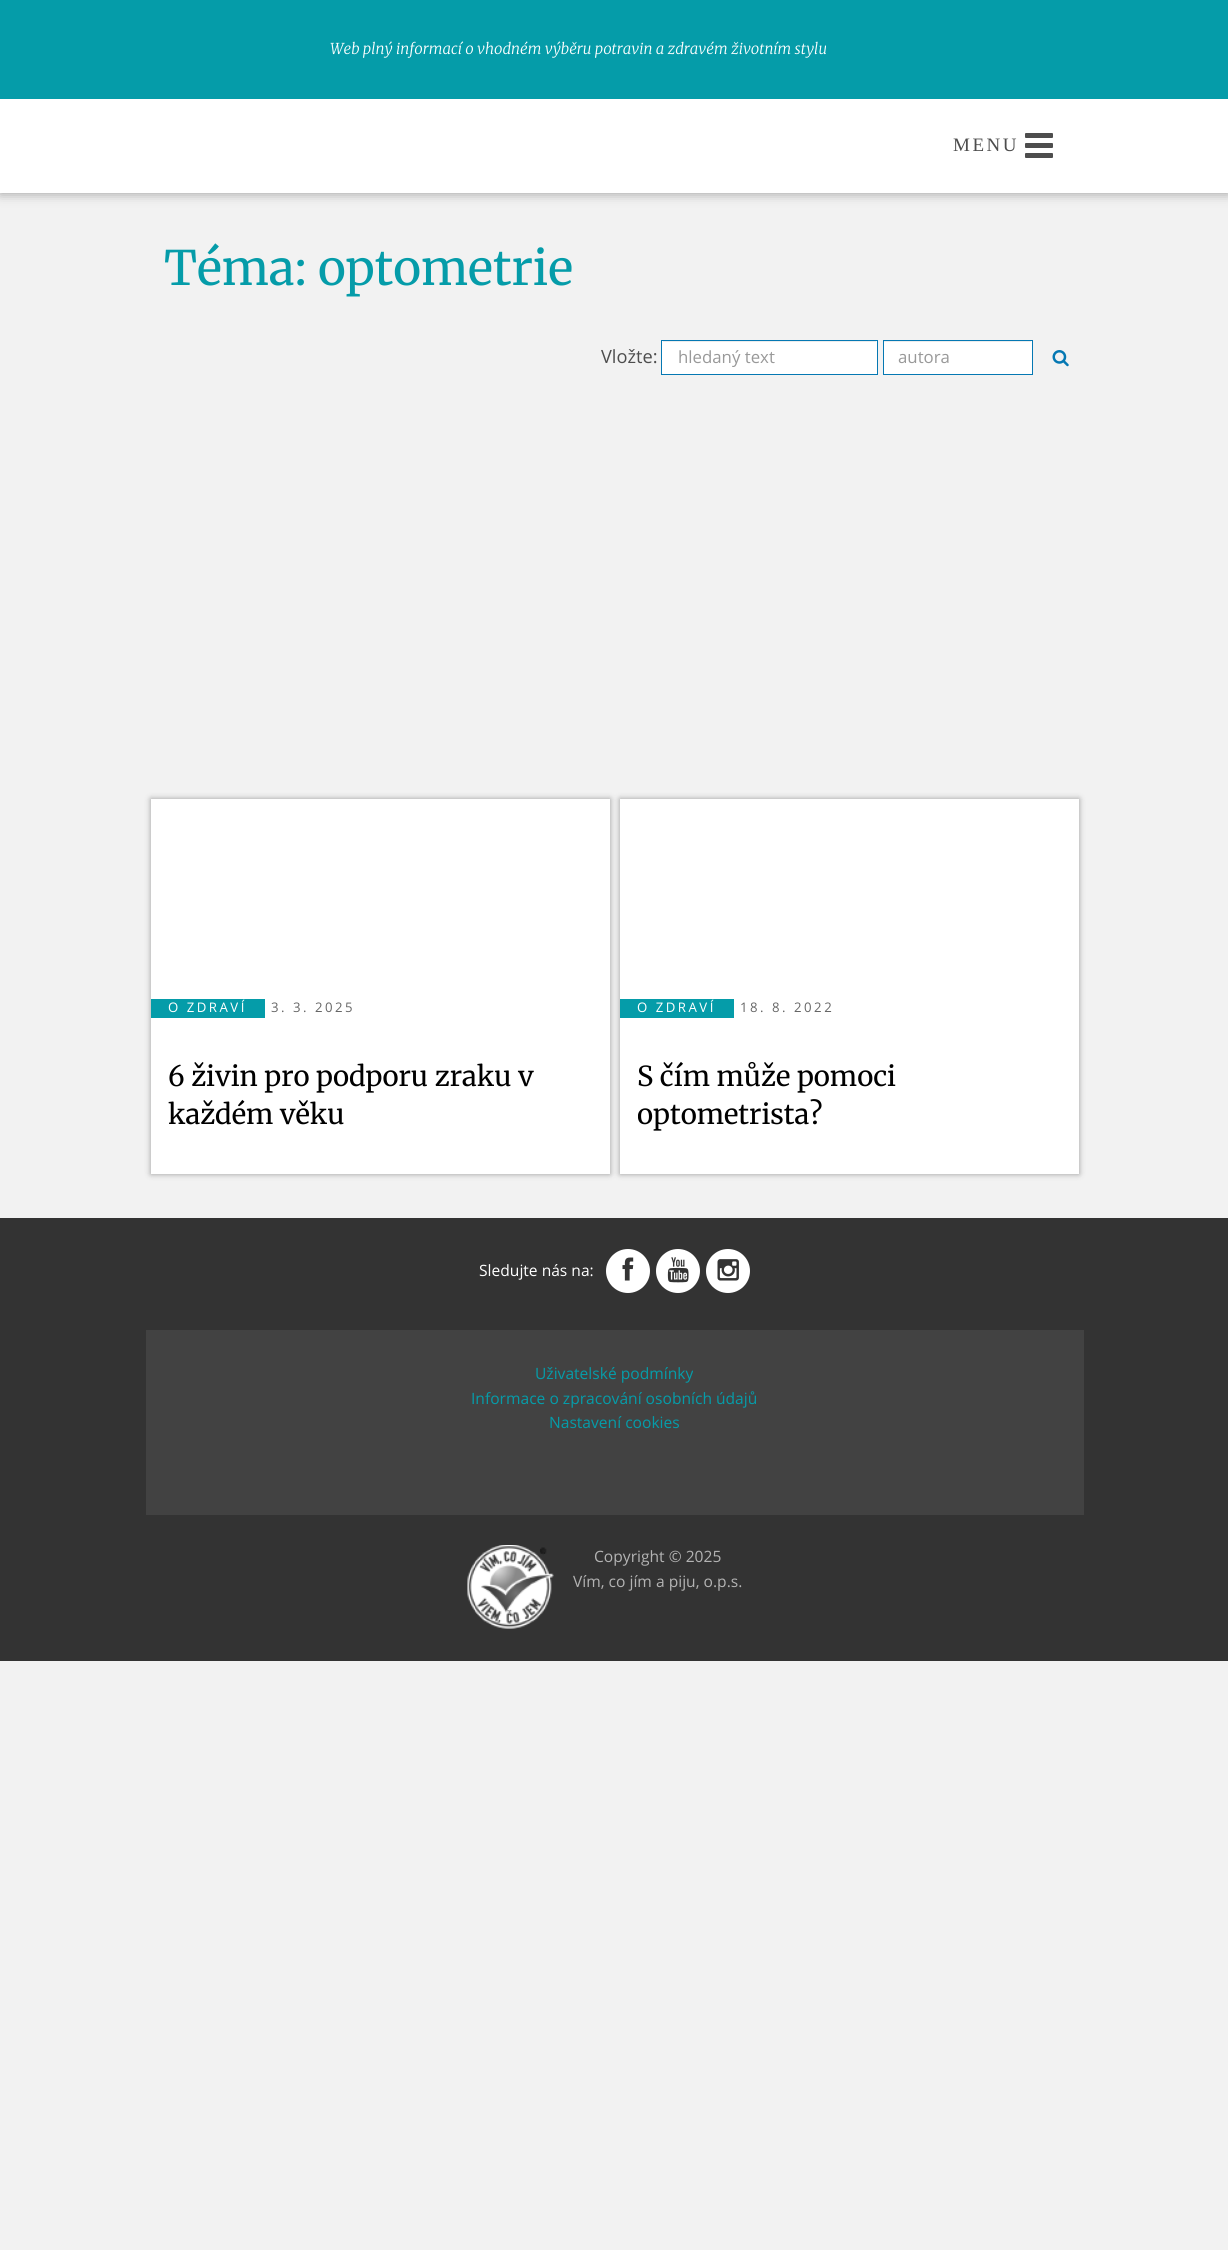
#include <cairo.h>
#include <math.h>
#include <stddef.h>


static void rgb(cairo_t *cr, int r, int g, int b)
{
	cairo_set_source_rgb(cr, r / 255.0, g / 255.0, b / 255.0);
}

static void face(cairo_t *cr, const char *family, double size, int italic, int bold)
{
	cairo_select_font_face(cr, family, italic ? CAIRO_FONT_SLANT_ITALIC : CAIRO_FONT_SLANT_NORMAL,
		bold ? CAIRO_FONT_WEIGHT_BOLD : CAIRO_FONT_WEIGHT_NORMAL);
	cairo_set_font_size(cr, size);
}

static void label(cairo_t *cr, double x, double y, const char *s)
{
	cairo_move_to(cr, x, y);
	cairo_show_text(cr, s);
}

static void tracked(cairo_t *cr, double x, double y, const char *s, double letter, double word)
{
	cairo_move_to(cr, x, y);
	while (*s) {
		char ch[5] = {0};
		int n = 0;
		do ch[n++] = *s++; while ((*s & 0xC0) == 0x80);
		cairo_show_text(cr, ch);
		cairo_rel_move_to(cr, letter + word * (*ch == ' '), 0);
	}
}

static void rect(cairo_t *cr, double x, double y, double w, double h)
{
	cairo_rectangle(cr, x, y, w, h);
	cairo_fill(cr);
}

static void rrect(cairo_t *cr, double x, double y, double w, double h, double r)
{
	cairo_new_sub_path(cr);
	cairo_arc(cr, x + w - r, y + h - r, r, 0, M_PI / 2);
	cairo_arc(cr, x + r, y + h - r, r, M_PI / 2, M_PI);
	cairo_arc(cr, x + r, y + r, r, M_PI, 1.5 * M_PI);
	cairo_arc(cr, x + w - r, y + r, r, 1.5 * M_PI, 2 * M_PI);
	cairo_close_path(cr);
}

static void soft_shadow(cairo_t *cr, double x, double y, double w, double h, double r, double blur, double alpha)
{
	cairo_push_group_with_content(cr, CAIRO_CONTENT_ALPHA);
	cairo_set_operator(cr, CAIRO_OPERATOR_SOURCE);
	for (int i = 15; i >= -15 && fmin(w, h) + blur * i / 3 > 0; i -= 2) {
		double e = blur * i / 6;
		cairo_set_source_rgba(cr, 0, 0, 0, alpha * erfc((i - 1) / 8.5) / 2);
		rrect(cr, x - e, y - e, w + 2 * e, h + 2 * e, fmax(0, fmin(r + e + blur * .6, fmin(w, h) / 2 + e)));
		cairo_fill(cr);
	}
	cairo_pattern_t *soft = cairo_pop_group(cr);
	cairo_mask(cr, soft);
	cairo_pattern_destroy(soft);
}

static void image(cairo_t *cr, const char *path, double x, double y, double w, double h)
{
	cairo_surface_t *image = cairo_image_surface_create_from_png(path);
	cairo_save(cr);
	cairo_set_source_surface(cr, image, x, y);
	cairo_rectangle(cr, x, y, w, h);
	cairo_fill(cr);
	cairo_restore(cr);
	cairo_surface_destroy(image);
}

static void draw(cairo_t *cr) {
	rgb(cr, 242, 242, 242);
	cairo_paint(cr);
	rgb(cr, 153, 153, 153);
	soft_shadow(cr, 0, 0, 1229, 193, 0, 6, 1);
	rgb(cr, 255, 255, 255);
	rect(cr, 0, 99, 1228, 94);
	rgb(cr, 5, 156, 169);
	rect(cr, 0, 0, 1228, 99);
	face(cr, "Merriweather Light", 15, 1, 0);
	rgb(cr, 255, 255, 255);
	label(cr, 330, 54, "Web plný informací o vhodném výběru potravin a zdravém životním stylu");
	face(cr, "Liberation Serif", 19, 0, 0);
	rgb(cr, 77, 77, 77);
	tracked(cr, 953, 151, "MENU", 2.5, 0);
	rrect(cr, 1025, 133, 28, 5, 1);
	cairo_fill(cr);
	rrect(cr, 1025, 143, 28, 5, 1);
	cairo_fill(cr);
	rrect(cr, 1025, 153, 28, 5, 1);
	cairo_fill(cr);
	face(cr, "Merriweather", 47.5, 0, 0);
	rgb(cr, 5, 156, 169);
	label(cr, 164, 285, "Téma: optometrie");
	face(cr, "Open Sans", 19, 0, 0);
	rgb(cr, 77, 77, 77);
	label(cr, 601, 363, "Vložte:");
	rgb(cr, 255, 255, 255);
	rect(cr, 662, 341, 215, 33);
	rgb(cr, 236, 236, 236);
	rect(cr, 663, 341, 213, 1);
	cairo_rectangle(cr, 661.5, 340.5, 216, 34);
	rgb(cr, 5, 120, 179);
	cairo_set_line_width(cr, 1);
	cairo_stroke(cr);
	face(cr, "Open Sans", 17.5, 0, 0);
	rgb(cr, 153, 153, 153);
	label(cr, 678, 363, "hledaný text");
	rgb(cr, 255, 255, 255);
	rect(cr, 884, 341, 148, 33);
	rgb(cr, 236, 236, 236);
	rect(cr, 884, 341, 147, 1);
	cairo_rectangle(cr, 883.5, 340.5, 149, 34);
	rgb(cr, 5, 120, 179);
	cairo_stroke(cr);
	rgb(cr, 153, 153, 153);
	label(cr, 898, 363, "autora");
	image(cr, "image0.png", 1052, 350, 17, 17);
	rgb(cr, 153, 153, 153);
	soft_shadow(cr, 151, 799, 459, 375, 0, 3, 1);
	rgb(cr, 255, 255, 255);
	rect(cr, 151, 799, 459, 375);
	rgb(cr, 5, 156, 169);
	rect(cr, 151, 999, 114, 19);
	face(cr, "Open Sans", 13.75, 0, 0);
	rgb(cr, 255, 255, 255);
	tracked(cr, 168, 1012, "O ZDRAVÍ", 2.5, 0);
	rgb(cr, 102, 102, 102);
	tracked(cr, 271, 1012, "3. 3. 2025", 2.5, 0);
	face(cr, "Merriweather", 27.5, 0, 0);
	rgb(cr, 0, 0, 0);
	label(cr, 168, 1086, "6 živin pro podporu zraku v");
	label(cr, 168, 1124, "každém věku");
	rgb(cr, 153, 153, 153);
	soft_shadow(cr, 620, 799, 459, 375, 0, 3, 1);
	rgb(cr, 255, 255, 255);
	rect(cr, 620, 799, 459, 375);
	rgb(cr, 5, 156, 169);
	rect(cr, 620, 999, 114, 19);
	face(cr, "Open Sans", 13.75, 0, 0);
	rgb(cr, 255, 255, 255);
	tracked(cr, 637, 1012, "O ZDRAVÍ", 2.5, 0);
	rgb(cr, 102, 102, 102);
	tracked(cr, 740, 1012, "18. 8. 2022", 2.5, 0);
	face(cr, "Merriweather", 27.5, 0, 0);
	rgb(cr, 0, 0, 0);
	label(cr, 637, 1086, "S čím může pomoci");
	cairo_save(cr);
	cairo_rectangle(cr, 638, 1058, 423, 76);
	cairo_clip(cr);
	label(cr, 637, 1124, "optometrista?");
	cairo_restore(cr);
	rgb(cr, 51, 51, 51);
	rect(cr, 0, 1218, 1228, 443);
	face(cr, "Open Sans", 16.25, 0, 0);
	rgb(cr, 255, 255, 255);
	label(cr, 479, 1276, "Sledujte nás na:");
	cairo_new_path(cr);
	cairo_arc(cr, 628, 1271, 22, 0, 2 * M_PI);
	cairo_fill(cr);
	image(cr, "image1.png", 622, 1257, 12, 24);
	cairo_arc(cr, 678, 1271, 22, 0, 2 * M_PI);
	cairo_fill(cr);
	image(cr, "image2.png", 667, 1257, 22, 26);
	cairo_arc(cr, 728, 1271, 22, 0, 2 * M_PI);
	cairo_fill(cr);
	image(cr, "image3.png", 717, 1259, 22, 22);
	rgb(cr, 66, 66, 66);
	rect(cr, 146, 1330, 938, 185);
	rgb(cr, 5, 156, 169);
	label(cr, 535, 1379, "Uživatelské podmínky");
	label(cr, 471, 1404, "Informace o zpracování osobních údajů");
	label(cr, 549, 1428, "Nastavení cookies");
	image(cr, "image4.png", 467, 1545, 87, 84);
	rgb(cr, 179, 179, 179);
	label(cr, 594, 1562, "Copyright © 2025");
	label(cr, 573, 1587, "Vím, co jím a piju, o.p.s.");
}

int main(void) {
	cairo_surface_t *surface = cairo_image_surface_create(CAIRO_FORMAT_RGB24, 1228, 2250);
	cairo_t *cr = cairo_create(surface);
	cairo_font_options_t *options = cairo_font_options_create();
	cairo_font_options_set_hint_metrics(options, CAIRO_HINT_METRICS_OFF);
	cairo_font_options_set_hint_style(options, CAIRO_HINT_STYLE_NONE);
	cairo_set_font_options(cr, options);
	cairo_set_miter_limit(cr, 4);
	draw(cr);
	cairo_surface_write_to_png(surface, "render.png");
	cairo_font_options_destroy(options);
	cairo_destroy(cr);
	cairo_surface_destroy(surface);
	return 0;
}
